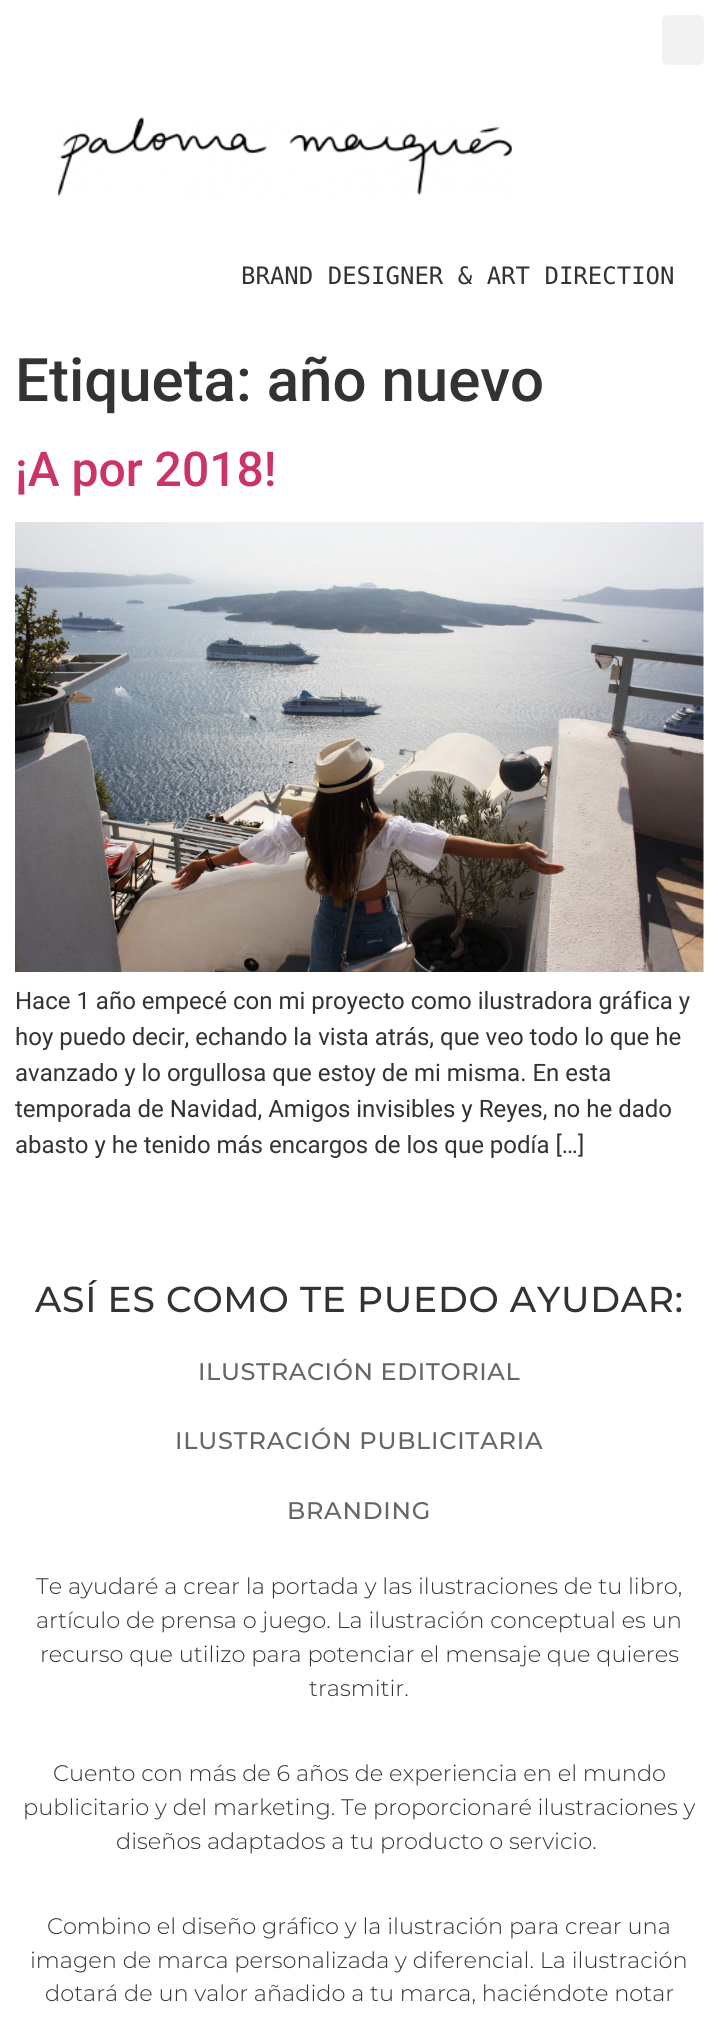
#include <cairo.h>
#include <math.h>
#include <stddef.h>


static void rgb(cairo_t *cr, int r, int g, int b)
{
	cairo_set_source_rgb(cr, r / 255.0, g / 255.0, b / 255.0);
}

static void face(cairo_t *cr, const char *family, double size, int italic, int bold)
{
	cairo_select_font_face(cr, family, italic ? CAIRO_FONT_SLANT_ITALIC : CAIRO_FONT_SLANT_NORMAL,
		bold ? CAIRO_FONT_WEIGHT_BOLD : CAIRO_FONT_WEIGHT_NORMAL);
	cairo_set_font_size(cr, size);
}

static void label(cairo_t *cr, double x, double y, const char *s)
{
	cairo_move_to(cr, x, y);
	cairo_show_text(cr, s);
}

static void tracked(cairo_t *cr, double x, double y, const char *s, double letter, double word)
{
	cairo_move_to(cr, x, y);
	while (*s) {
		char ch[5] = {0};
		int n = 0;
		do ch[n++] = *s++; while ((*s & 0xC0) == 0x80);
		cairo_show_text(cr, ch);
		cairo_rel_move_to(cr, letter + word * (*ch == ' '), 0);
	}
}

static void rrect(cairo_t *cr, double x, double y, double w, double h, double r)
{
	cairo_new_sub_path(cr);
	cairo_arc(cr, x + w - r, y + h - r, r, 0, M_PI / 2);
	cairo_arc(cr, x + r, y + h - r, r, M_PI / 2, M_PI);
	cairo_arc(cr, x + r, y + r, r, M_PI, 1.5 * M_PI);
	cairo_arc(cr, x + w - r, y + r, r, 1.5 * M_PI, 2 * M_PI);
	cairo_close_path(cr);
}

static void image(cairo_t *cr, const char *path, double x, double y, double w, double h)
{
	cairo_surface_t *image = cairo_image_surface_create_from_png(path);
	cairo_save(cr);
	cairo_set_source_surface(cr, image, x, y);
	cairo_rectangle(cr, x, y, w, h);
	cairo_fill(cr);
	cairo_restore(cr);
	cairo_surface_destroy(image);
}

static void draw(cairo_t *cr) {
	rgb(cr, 255, 255, 255);
	cairo_paint(cr);
	rgb(cr, 242, 242, 242);
	rrect(cr, 662, 15, 42, 50, 5);
	cairo_fill(cr);
	image(cr, "image0.png", 57, 117, 456, 79);
	face(cr, "DejaVu Sans Mono", 24, 0, 0);
	rgb(cr, 51, 51, 51);
	label(cr, 241, 284, "BRAND DESIGNER & ART DIRECTION");
	face(cr, "Roboto Medium", 60, 0, 0);
	label(cr, 15, 401, "Etiqueta: año nuevo");
	face(cr, "Roboto Medium", 48, 0, 0);
	rgb(cr, 204, 51, 102);
	label(cr, 15, 486, "¡A por 2018!");
	image(cr, "image1.png", 15, 522, 689, 450);
	face(cr, "Roboto", 24, 0, 0);
	rgb(cr, 51, 51, 51);
	label(cr, 15, 1009, "Hace 1 año empecé con mi proyecto como ilustradora gráfica y");
	label(cr, 15, 1045, "hoy puedo decir, echando la vista atrás, que veo todo lo que he");
	label(cr, 15, 1081, "avanzado y lo orgullosa que estoy de mi misma. En esta");
	label(cr, 15, 1117, "temporada de Navidad, Amigos invisibles y Reyes, no he dado");
	label(cr, 15, 1153, "abasto y he tenido más encargos de los que podía […]");
	face(cr, "Montserrat Medium", 36, 0, 0);
	tracked(cr, 35, 1312, "ASÍ ES COMO TE PUEDO AYUDAR:", 0.75, 0);
	face(cr, "Montserrat Medium", 24, 0, 0);
	rgb(cr, 102, 102, 102);
	tracked(cr, 198, 1380, "ILUSTRACIÓN EDITORIAL", 0.6, 0);
	tracked(cr, 175, 1449, "ILUSTRACIÓN PUBLICITARIA", 0.75, 0);
	tracked(cr, 287, 1519, "BRANDING", 0.75, 0);
	face(cr, "Montserrat Light", 22.5, 0, 0);
	rgb(cr, 51, 51, 51);
	label(cr, 36, 1594, "Te ayudaré a crear la portada y las ilustraciones de tu libro,");
	label(cr, 36, 1628, "artículo de prensa o juego. La ilustración conceptual es un");
	label(cr, 40, 1662, "recurso que utilizo para potenciar el mensaje que quieres");
	label(cr, 309, 1696, "trasmitir.");
	label(cr, 53, 1781, "Cuento con más de 6 años de experiencia en el mundo");
	label(cr, 23, 1815, "publicitario y del marketing. Te proporcionaré ilustraciones y");
	label(cr, 116, 1849, "diseños adaptados a tu producto o servicio.");
	label(cr, 47, 1934, "Combino el diseño gráfico y la ilustración para crear una");
	label(cr, 30, 1968, "imagen de marca personalizada y diferencial. La ilustración");
	label(cr, 45, 2001, "dotará de un valor añadido a tu marca, haciéndote notar");
}

int main(void) {
	cairo_surface_t *surface = cairo_image_surface_create(CAIRO_FORMAT_RGB24, 718, 2030);
	cairo_t *cr = cairo_create(surface);
	cairo_font_options_t *options = cairo_font_options_create();
	cairo_font_options_set_hint_metrics(options, CAIRO_HINT_METRICS_OFF);
	cairo_font_options_set_hint_style(options, CAIRO_HINT_STYLE_NONE);
	cairo_set_font_options(cr, options);
	cairo_set_miter_limit(cr, 4);
	draw(cr);
	cairo_surface_write_to_png(surface, "render.png");
	cairo_font_options_destroy(options);
	cairo_destroy(cr);
	cairo_surface_destroy(surface);
	return 0;
}
